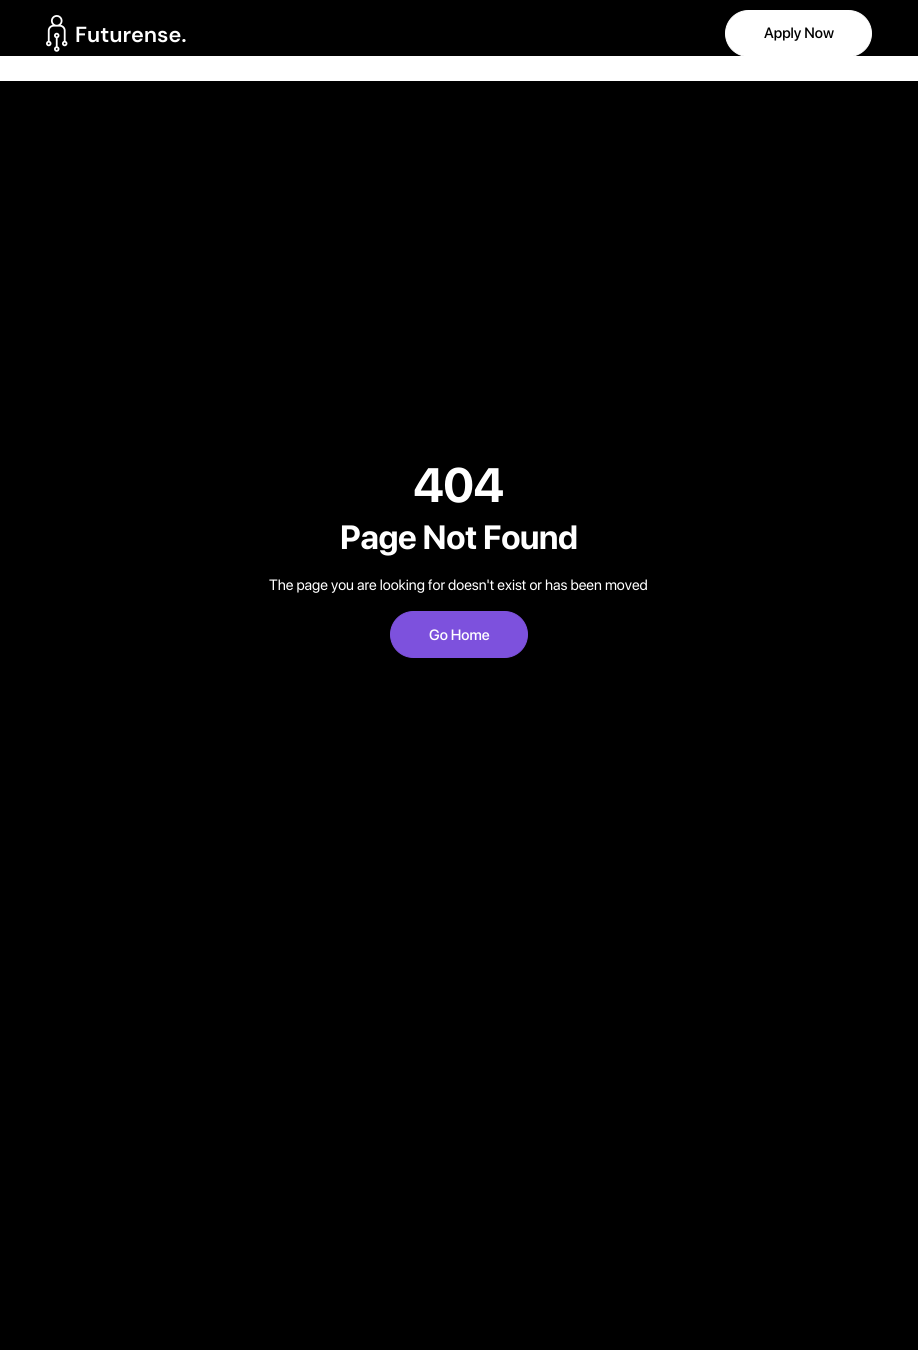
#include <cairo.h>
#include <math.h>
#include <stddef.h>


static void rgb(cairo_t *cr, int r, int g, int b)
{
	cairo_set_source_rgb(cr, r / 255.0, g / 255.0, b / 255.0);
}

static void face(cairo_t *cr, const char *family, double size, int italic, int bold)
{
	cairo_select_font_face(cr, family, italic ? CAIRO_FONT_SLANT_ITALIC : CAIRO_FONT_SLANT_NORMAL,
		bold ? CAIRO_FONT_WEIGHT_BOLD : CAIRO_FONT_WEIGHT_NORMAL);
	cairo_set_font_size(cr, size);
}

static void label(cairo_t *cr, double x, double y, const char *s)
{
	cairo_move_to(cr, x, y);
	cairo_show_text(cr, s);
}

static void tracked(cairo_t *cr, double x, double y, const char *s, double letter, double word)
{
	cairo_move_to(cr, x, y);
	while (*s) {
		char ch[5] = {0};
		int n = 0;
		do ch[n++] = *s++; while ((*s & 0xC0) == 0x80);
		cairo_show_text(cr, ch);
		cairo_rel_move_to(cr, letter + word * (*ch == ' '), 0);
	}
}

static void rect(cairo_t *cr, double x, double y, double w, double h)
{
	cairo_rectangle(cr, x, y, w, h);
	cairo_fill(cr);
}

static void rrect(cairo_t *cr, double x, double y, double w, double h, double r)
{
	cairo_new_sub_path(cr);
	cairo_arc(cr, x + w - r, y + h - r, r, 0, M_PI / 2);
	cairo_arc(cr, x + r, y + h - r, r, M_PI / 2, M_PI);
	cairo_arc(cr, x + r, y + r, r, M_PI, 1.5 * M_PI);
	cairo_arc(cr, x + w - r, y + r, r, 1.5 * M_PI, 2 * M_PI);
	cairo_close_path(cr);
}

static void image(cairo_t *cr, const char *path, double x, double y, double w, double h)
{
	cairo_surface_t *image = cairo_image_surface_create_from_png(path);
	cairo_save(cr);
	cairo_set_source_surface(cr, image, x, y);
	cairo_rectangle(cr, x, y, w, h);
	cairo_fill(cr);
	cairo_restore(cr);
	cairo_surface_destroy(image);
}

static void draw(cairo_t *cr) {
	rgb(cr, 0, 0, 0);
	cairo_paint(cr);
	image(cr, "image0.png", 46, 15, 140, 37);
	rgb(cr, 255, 255, 255);
	rrect(cr, 725.5, 10.5, 146, 46, 23);
	cairo_fill_preserve(cr);
	cairo_set_line_width(cr, 1);
	cairo_stroke(cr);
	face(cr, "SF Pro Display Medium", 14.9, 0, 0);
	rgb(cr, 0, 0, 0);
	label(cr, 764, 38, "Apply Now");
	rgb(cr, 255, 255, 255);
	rect(cr, 0, 56, 918, 25);
	face(cr, "SF Pro Display", 48, 0, 1);
	tracked(cr, 413, 502, "404", -1, 0);
	face(cr, "SF Pro Display", 33.5, 0, 1);
	tracked(cr, 340, 549, "Page Not Found", -0.3, 0);
	face(cr, "SF Pro Display", 14.9, 0, 0);
	label(cr, 269, 590, "The page you are looking for doesn't exist or has been moved");
	rgb(cr, 125, 81, 221);
	rrect(cr, 390.5, 611.5, 137, 46, 23);
	cairo_fill_preserve(cr);
	cairo_stroke(cr);
	face(cr, "SF Pro Display Medium", 14.9, 0, 0);
	rgb(cr, 255, 255, 255);
	label(cr, 429, 640, "Go Home");
}

int main(void) {
	cairo_surface_t *surface = cairo_image_surface_create(CAIRO_FORMAT_RGB24, 918, 1350);
	cairo_t *cr = cairo_create(surface);
	cairo_font_options_t *options = cairo_font_options_create();
	cairo_font_options_set_hint_metrics(options, CAIRO_HINT_METRICS_OFF);
	cairo_font_options_set_hint_style(options, CAIRO_HINT_STYLE_NONE);
	cairo_set_font_options(cr, options);
	cairo_set_miter_limit(cr, 4);
	draw(cr);
	cairo_surface_write_to_png(surface, "render.png");
	cairo_font_options_destroy(options);
	cairo_destroy(cr);
	cairo_surface_destroy(surface);
	return 0;
}
